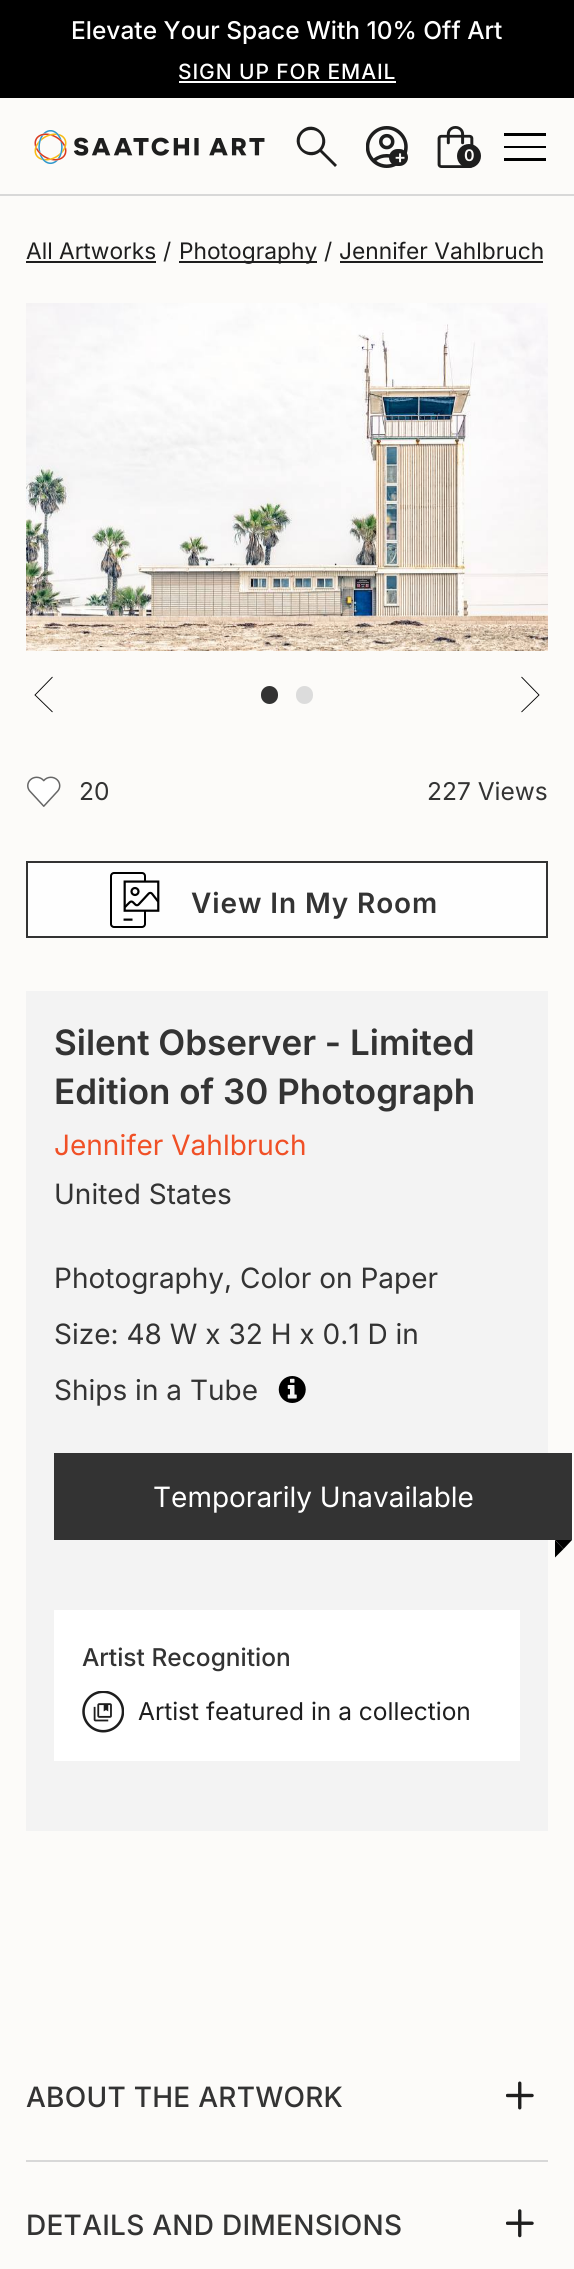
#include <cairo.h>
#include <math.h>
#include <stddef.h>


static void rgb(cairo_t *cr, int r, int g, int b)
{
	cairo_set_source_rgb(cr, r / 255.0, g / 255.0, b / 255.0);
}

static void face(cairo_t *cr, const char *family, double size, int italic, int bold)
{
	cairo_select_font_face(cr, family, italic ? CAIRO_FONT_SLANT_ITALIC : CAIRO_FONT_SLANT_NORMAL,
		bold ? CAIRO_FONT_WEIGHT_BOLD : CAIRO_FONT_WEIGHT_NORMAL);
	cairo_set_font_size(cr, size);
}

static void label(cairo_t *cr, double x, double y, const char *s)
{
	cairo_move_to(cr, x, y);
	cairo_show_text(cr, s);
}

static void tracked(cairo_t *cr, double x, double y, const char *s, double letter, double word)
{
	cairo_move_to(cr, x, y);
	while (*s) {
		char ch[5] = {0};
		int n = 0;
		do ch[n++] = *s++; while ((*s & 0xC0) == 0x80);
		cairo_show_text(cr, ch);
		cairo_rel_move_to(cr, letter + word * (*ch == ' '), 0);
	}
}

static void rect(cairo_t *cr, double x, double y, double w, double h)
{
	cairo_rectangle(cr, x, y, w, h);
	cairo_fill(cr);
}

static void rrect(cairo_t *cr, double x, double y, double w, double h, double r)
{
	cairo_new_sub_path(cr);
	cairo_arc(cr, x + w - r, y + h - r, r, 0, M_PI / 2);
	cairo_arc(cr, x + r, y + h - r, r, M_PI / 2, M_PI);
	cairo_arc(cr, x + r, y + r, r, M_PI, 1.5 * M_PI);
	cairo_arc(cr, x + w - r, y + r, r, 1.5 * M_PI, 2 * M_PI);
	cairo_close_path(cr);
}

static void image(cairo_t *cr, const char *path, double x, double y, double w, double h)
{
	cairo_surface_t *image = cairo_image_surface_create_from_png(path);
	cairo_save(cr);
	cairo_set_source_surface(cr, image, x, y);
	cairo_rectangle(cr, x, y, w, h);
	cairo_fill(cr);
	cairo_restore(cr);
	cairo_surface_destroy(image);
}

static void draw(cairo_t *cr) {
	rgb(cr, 252, 251, 249);
	cairo_paint(cr);
	rgb(cr, 0, 0, 0);
	rect(cr, 0, 0, 574, 98);
	face(cr, "Inter Medium", 24.5, 0, 0);
	rgb(cr, 255, 255, 255);
	label(cr, 71, 39, "Elevate Your Space With 10% Off Art");
	face(cr, "Inter Medium", 21, 0, 0);
	tracked(cr, 178, 79, "SIGN UP FOR EMAIL", 0.9, 0);
	rect(cr, 179, 81, 217, 2);
	rgb(cr, 216, 216, 216);
	rect(cr, 0, 194, 574, 2);
	image(cr, "image0.png", 34, 130, 231, 35);
	rgb(cr, 30, 30, 30);
	cairo_new_path(cr);
	cairo_move_to(cr, 335, 167);
	cairo_line_to(cr, 320, 152);
	cairo_curve_to(cr, 307, 163, 288, 144, 301, 131);
	cairo_curve_to(cr, 314, 118, 333, 137, 322, 150);
	cairo_line_to(cr, 337, 165);
	cairo_close_path(cr);
	cairo_move_to(cr, 311, 152);
	cairo_curve_to(cr, 326, 152, 326, 130, 311, 130);
	cairo_curve_to(cr, 296, 130, 296, 152, 311, 152);
	cairo_close_path(cr);
	cairo_fill(cr);
	image(cr, "image1.png", 366, 126, 42, 42);
	rrect(cr, 389, 149, 19, 17, 8.5);
	cairo_fill(cr);
	face(cr, "Inter SemiBold", 18, 0, 0);
	rgb(cr, 252, 251, 249);
	label(cr, 394, 163, "+");
	image(cr, "image2.png", 437, 126, 37, 42);
	rgb(cr, 30, 30, 30);
	cairo_arc(cr, 469, 156, 12, 0, 2 * M_PI);
	cairo_fill(cr);
	face(cr, "Inter SemiBold", 16, 0, 0);
	rgb(cr, 252, 251, 249);
	label(cr, 464, 161, "0");
	rgb(cr, 0, 0, 0);
	cairo_new_path(cr);
	cairo_move_to(cr, 504, 161);
	cairo_line_to(cr, 504, 158);
	cairo_line_to(cr, 546, 158);
	cairo_line_to(cr, 546, 161);
	cairo_close_path(cr);
	cairo_move_to(cr, 504, 148);
	cairo_line_to(cr, 504, 146);
	cairo_line_to(cr, 546, 146);
	cairo_line_to(cr, 546, 148);
	cairo_close_path(cr);
	cairo_move_to(cr, 504, 136);
	cairo_line_to(cr, 504, 133);
	cairo_line_to(cr, 546, 133);
	cairo_line_to(cr, 546, 136);
	cairo_close_path(cr);
	cairo_fill(cr);
	face(cr, "Inter", 22.75, 0, 0);
	rgb(cr, 30, 30, 30);
	label(cr, 26, 259, "All Artworks");
	rect(cr, 26, 261, 130, 2);
	label(cr, 163, 259, "/");
	rect(cr, 179, 261, 138, 2);
	label(cr, 179, 259, "Photography");
	label(cr, 324, 259, "/");
	label(cr, 339, 259, "Jennifer Vahlbruch");
	rect(cr, 340, 261, 203, 2);
	image(cr, "image3.png", 26, 303, 522, 348);
	cairo_new_path(cr);
	cairo_move_to(cr, 52.5, 677);
	cairo_line_to(cr, 35, 695);
	cairo_line_to(cr, 52.5, 712);
	rgb(cr, 0, 0, 0);
	cairo_set_line_width(cr, 0.9);
	cairo_stroke(cr);
	rgb(cr, 51, 51, 51);
	rrect(cr, 261, 686, 17, 18, 8.5);
	cairo_fill(cr);
	rgb(cr, 220, 220, 220);
	rrect(cr, 296, 686, 17, 18, 8.5);
	cairo_fill(cr);
	cairo_new_path(cr);
	cairo_move_to(cr, 521.5, 677);
	cairo_line_to(cr, 539, 695);
	cairo_line_to(cr, 521.5, 712);
	rgb(cr, 0, 0, 0);
	cairo_stroke(cr);
	image(cr, "image4.png", 27, 776, 34, 31);
	face(cr, "Inter", 24.5, 0, 0);
	rgb(cr, 51, 51, 51);
	label(cr, 79, 800, "20");
	label(cr, 427, 800, "227 Views");
	rgb(cr, 254, 254, 254);
	cairo_rectangle(cr, 27, 862, 520, 75);
	cairo_fill_preserve(cr);
	rgb(cr, 51, 51, 51);
	cairo_set_line_width(cr, 2);
	cairo_stroke(cr);
	image(cr, "image5.png", 110, 872, 50, 56);
	face(cr, "Inter SemiBold", 28, 0, 0);
	tracked(cr, 191, 913, "View In My Room", 0.9, 0);
	rgb(cr, 243, 243, 243);
	rect(cr, 26, 991, 522, 840);
	face(cr, "Inter SemiBold", 35, 0, 0);
	rgb(cr, 51, 51, 51);
	label(cr, 54, 1055, "Silent Observer - Limited");
	label(cr, 54, 1104, "Edition of 30 Photograph");
	face(cr, "Inter", 28, 0, 0);
	rgb(cr, 240, 80, 38);
	label(cr, 54, 1155, "Jennifer Vahlbruch");
	rgb(cr, 51, 51, 51);
	label(cr, 54, 1204, "United States");
	label(cr, 54, 1288, "Photography, Color on Paper");
	label(cr, 54, 1344, "Size: 48 W x 32 H x 0.1 D in");
	label(cr, 54, 1400, "Ships in a Tube");
	image(cr, "image6.png", 278, 1376, 28, 27);
	rect(cr, 54, 1453, 518, 87);
	rgb(cr, 255, 255, 255);
	label(cr, 153, 1507, "Temporarily Unavailable");
	rgb(cr, 0, 0, 0);
	cairo_new_path(cr);
	cairo_move_to(cr, 555, 1540);
	cairo_line_to(cr, 572, 1540);
	cairo_line_to(cr, 563.5, 1549);
	cairo_close_path(cr);
	cairo_fill(cr);
	cairo_new_path(cr);
	cairo_move_to(cr, 555, 1557.5);
	cairo_line_to(cr, 555, 1540);
	cairo_line_to(cr, 563.5, 1549);
	cairo_close_path(cr);
	cairo_fill(cr);
	rgb(cr, 255, 255, 255);
	rect(cr, 54, 1610, 466, 151);
	face(cr, "Inter Medium", 24.5, 0, 0);
	rgb(cr, 51, 51, 51);
	label(cr, 82, 1666, "Artist Recognition");
	image(cr, "image7.png", 82, 1691, 42, 42);
	face(cr, "Inter", 24.5, 0, 0);
	rgb(cr, 30, 30, 30);
	label(cr, 138, 1720, "Artist featured in a collection");
	face(cr, "Inter Medium", 28, 0, 0);
	rgb(cr, 51, 51, 51);
	tracked(cr, 26, 2107, "ABOUT THE ARTWORK", 0.25, 0);
	image(cr, "image8.png", 506, 2081, 28, 29);
	rgb(cr, 216, 216, 216);
	rect(cr, 26, 2160, 522, 2);
	rgb(cr, 51, 51, 51);
	tracked(cr, 26, 2235, "DETAILS AND DIMENSIONS", 0.25, 0);
	image(cr, "image9.png", 506, 2209, 28, 29);
}

int main(void) {
	cairo_surface_t *surface = cairo_image_surface_create(CAIRO_FORMAT_RGB24, 574, 2269);
	cairo_t *cr = cairo_create(surface);
	cairo_font_options_t *options = cairo_font_options_create();
	cairo_font_options_set_hint_metrics(options, CAIRO_HINT_METRICS_OFF);
	cairo_font_options_set_hint_style(options, CAIRO_HINT_STYLE_NONE);
	cairo_set_font_options(cr, options);
	cairo_set_miter_limit(cr, 4);
	draw(cr);
	cairo_surface_write_to_png(surface, "render.png");
	cairo_font_options_destroy(options);
	cairo_destroy(cr);
	cairo_surface_destroy(surface);
	return 0;
}
